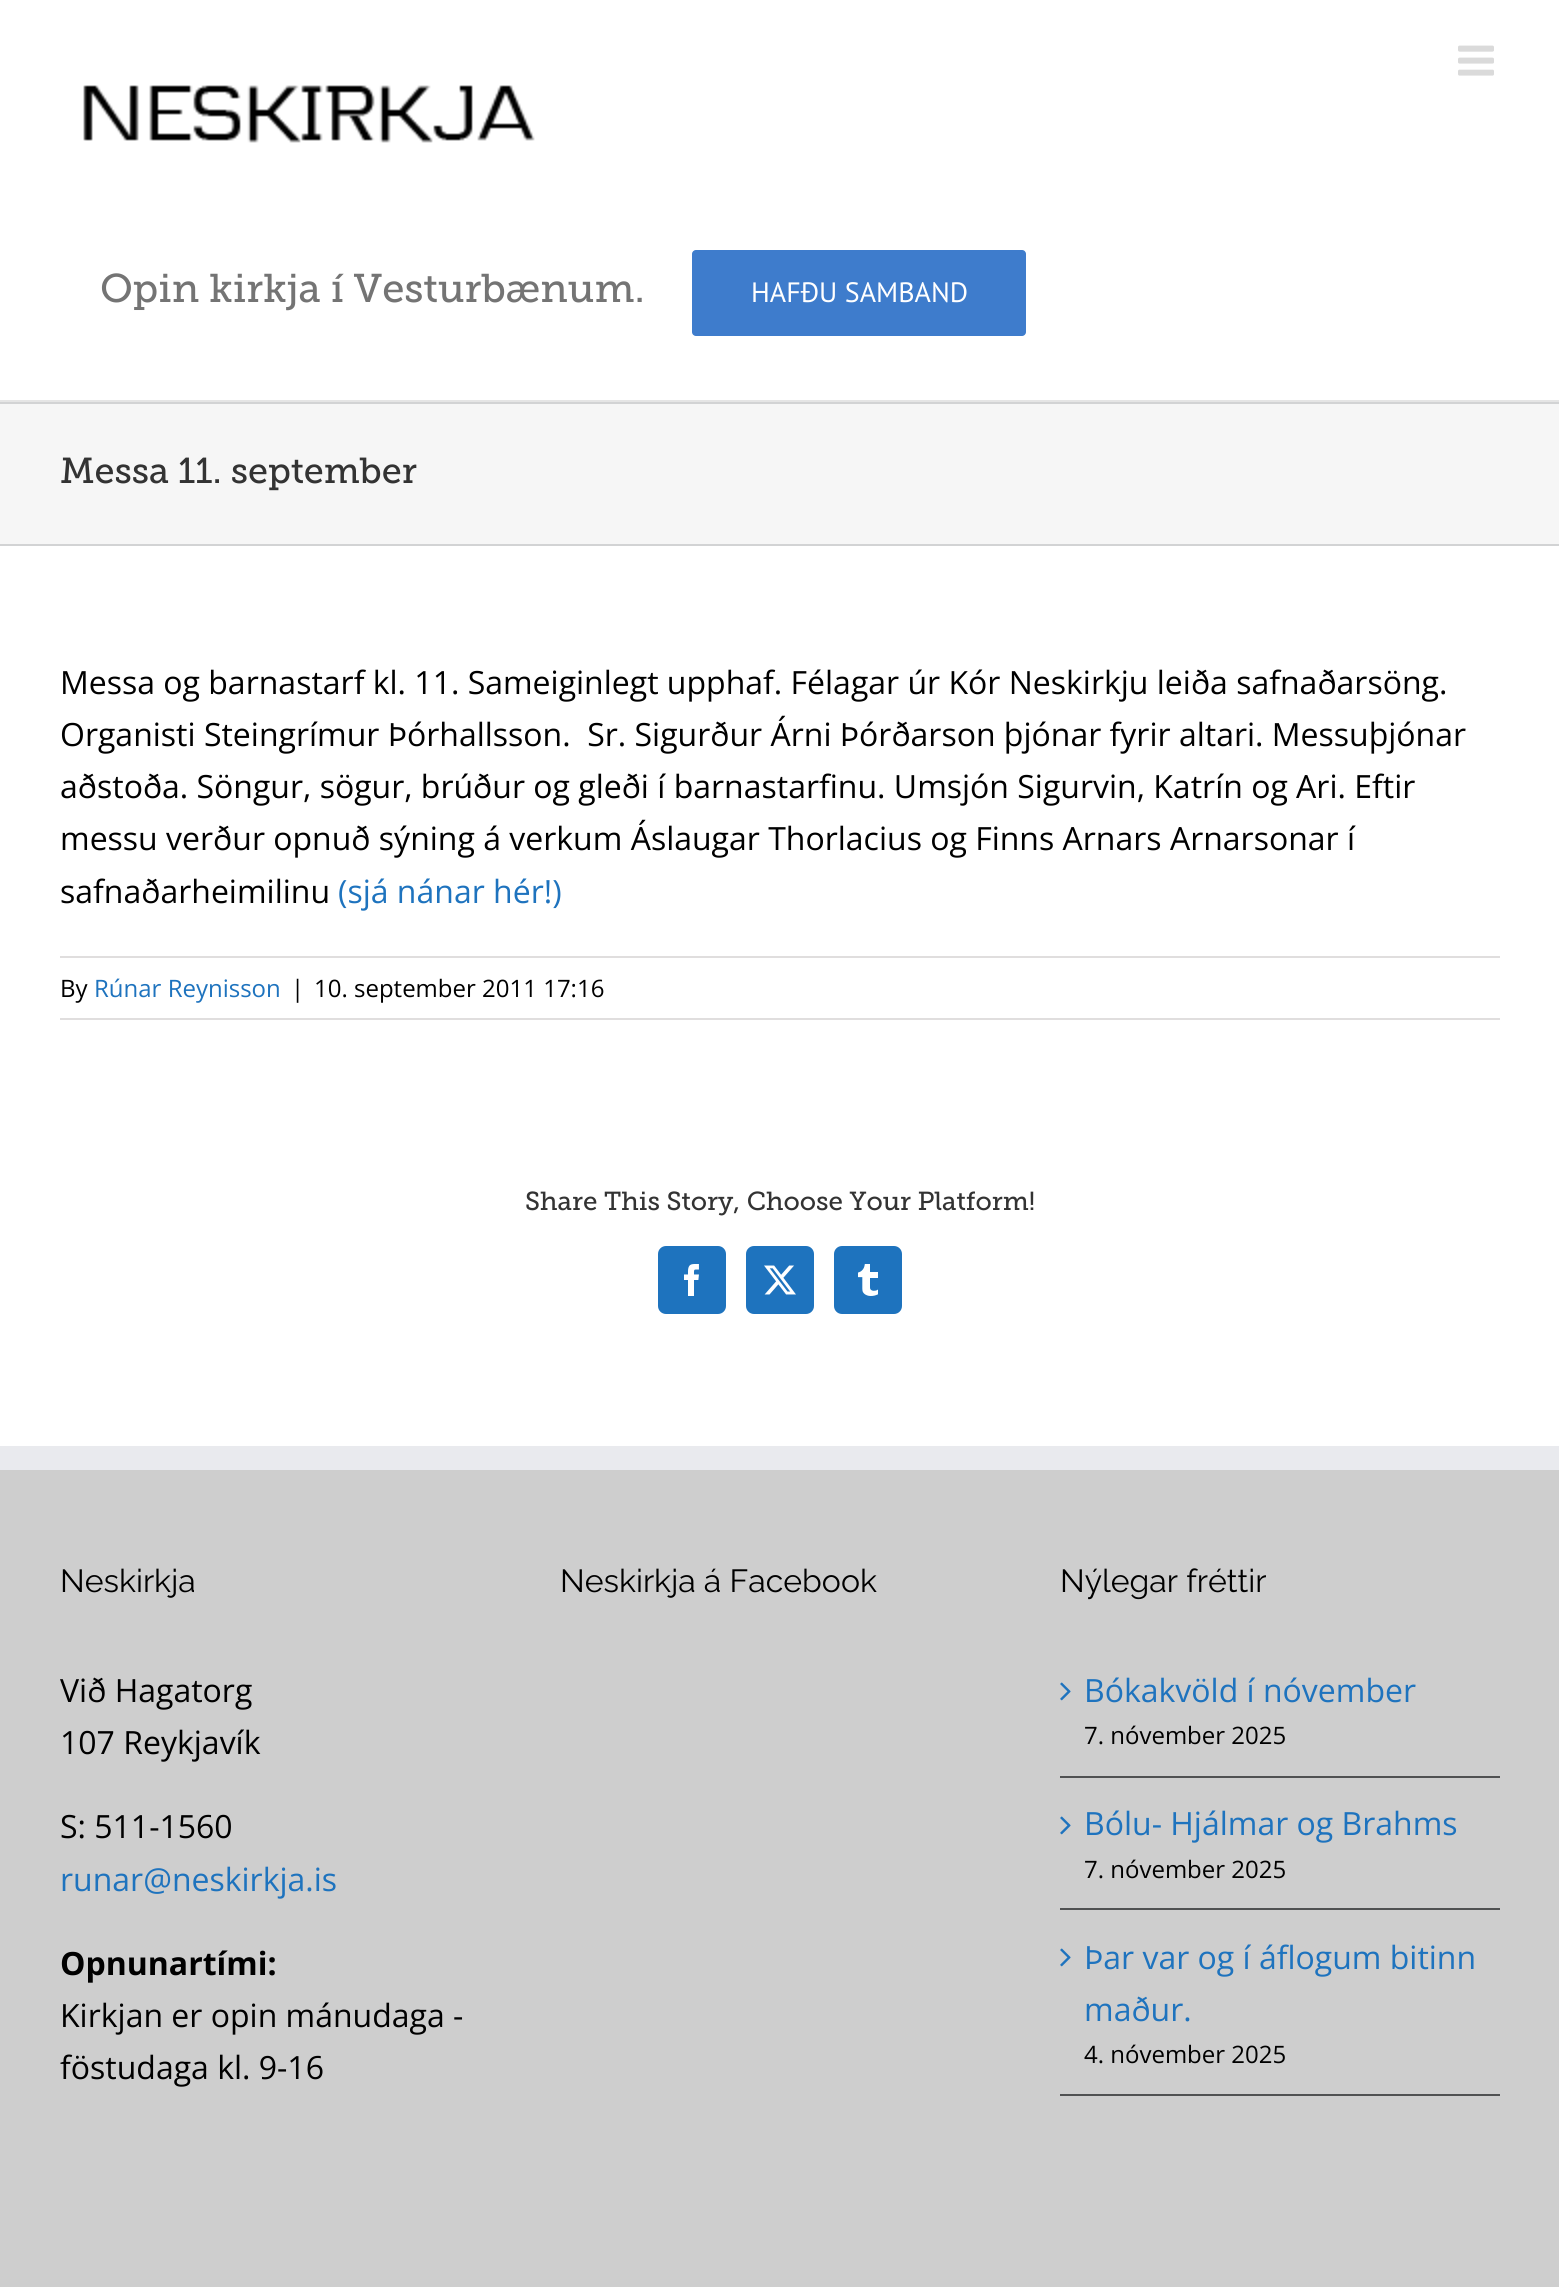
#include <cairo.h>
#include <math.h>
#include <stddef.h>


static void rgb(cairo_t *cr, int r, int g, int b)
{
	cairo_set_source_rgb(cr, r / 255.0, g / 255.0, b / 255.0);
}

static void face(cairo_t *cr, const char *family, double size, int italic, int bold)
{
	cairo_select_font_face(cr, family, italic ? CAIRO_FONT_SLANT_ITALIC : CAIRO_FONT_SLANT_NORMAL,
		bold ? CAIRO_FONT_WEIGHT_BOLD : CAIRO_FONT_WEIGHT_NORMAL);
	cairo_set_font_size(cr, size);
}

static void label(cairo_t *cr, double x, double y, const char *s)
{
	cairo_move_to(cr, x, y);
	cairo_show_text(cr, s);
}

static void rect(cairo_t *cr, double x, double y, double w, double h)
{
	cairo_rectangle(cr, x, y, w, h);
	cairo_fill(cr);
}

static void rrect(cairo_t *cr, double x, double y, double w, double h, double r)
{
	cairo_new_sub_path(cr);
	cairo_arc(cr, x + w - r, y + h - r, r, 0, M_PI / 2);
	cairo_arc(cr, x + r, y + h - r, r, M_PI / 2, M_PI);
	cairo_arc(cr, x + r, y + r, r, M_PI, 1.5 * M_PI);
	cairo_arc(cr, x + w - r, y + r, r, 1.5 * M_PI, 2 * M_PI);
	cairo_close_path(cr);
}

static void image(cairo_t *cr, const char *path, double x, double y, double w, double h)
{
	cairo_surface_t *image = cairo_image_surface_create_from_png(path);
	cairo_save(cr);
	cairo_set_source_surface(cr, image, x, y);
	cairo_rectangle(cr, x, y, w, h);
	cairo_fill(cr);
	cairo_restore(cr);
	cairo_surface_destroy(image);
}

static void draw(cairo_t *cr) {
	rgb(cr, 246, 246, 246);
	cairo_paint(cr);
	rgb(cr, 255, 255, 255);
	rect(cr, 0, 0, 1559, 400);
	rgb(cr, 229, 229, 229);
	rect(cr, 0, 400, 1559, 2);
	image(cr, "image0.png", 1458, 45, 36, 31);
	image(cr, "image1.png", 83, 85, 452, 58);
	face(cr, "Museo Slab", 40, 0, 0);
	rgb(cr, 116, 116, 116);
	label(cr, 100, 302, "Opin kirkja í Vesturbænum.");
	rgb(cr, 62, 124, 204);
	rrect(cr, 692, 250, 334, 86, 4);
	cairo_fill(cr);
	face(cr, "PT Sans", 28, 0, 0);
	rgb(cr, 255, 255, 255);
	label(cr, 751, 302, "HAFÐU SAMBAND");
	rgb(cr, 210, 211, 212);
	rect(cr, 0, 402, 1559, 2);
	rect(cr, 0, 544, 1559, 2);
	face(cr, "Museo Slab", 36, 0, 0);
	rgb(cr, 51, 51, 51);
	label(cr, 60, 483, "Messa 11. september");
	rgb(cr, 255, 255, 255);
	rect(cr, 0, 546, 1559, 900);
	face(cr, "Open Sans", 32, 0, 0);
	rgb(cr, 0, 0, 0);
	label(cr, 60, 694, "Messa og barnastarf kl. 11. Sameiginlegt upphaf. Félagar úr Kór Neskirkju leiða safnaðarsöng.");
	label(cr, 60, 746, "Organisti Steingrímur Þórhallsson.  Sr. Sigurður Árni Þórðarson þjónar fyrir altari. Messuþjónar");
	label(cr, 60, 798, "aðstoða. Söngur, sögur, brúður og gleði í barnastarfinu. Umsjón Sigurvin, Katrín og Ari. Eftir");
	label(cr, 60, 850, "messu verður opnuð sýning á verkum Áslaugar Thorlacius og Finns Arnars Arnarsonar í");
	label(cr, 60, 903, "safnaðarheimilinu");
	rgb(cr, 30, 115, 190);
	label(cr, 338, 903, "(sjá nánar hér!)");
	rgb(cr, 224, 222, 222);
	rect(cr, 60, 956, 1440, 2);
	rect(cr, 60, 1018, 1440, 2);
	face(cr, "Open Sans", 24, 0, 0);
	rgb(cr, 0, 0, 0);
	label(cr, 60, 997, "By");
	rgb(cr, 30, 115, 190);
	label(cr, 94, 997, "Rúnar Reynisson");
	rgb(cr, 0, 0, 0);
	label(cr, 291, 997, "|");
	label(cr, 314, 997, "10. september 2011 17:16");
	face(cr, "Museo Slab", 26, 0, 0);
	rgb(cr, 51, 51, 51);
	label(cr, 525, 1210, "Share This Story, Choose Your Platform!");
	rgb(cr, 30, 115, 190);
	rrect(cr, 659, 1247, 66, 66, 7);
	cairo_fill_preserve(cr);
	cairo_stroke(cr);
	image(cr, "image2.png", 684, 1264, 15, 32);
	rrect(cr, 747, 1247, 66, 66, 7);
	cairo_fill_preserve(cr);
	cairo_stroke(cr);
	image(cr, "image3.png", 764, 1265, 32, 30);
	rrect(cr, 835, 1247, 66, 66, 7);
	cairo_fill_preserve(cr);
	cairo_stroke(cr);
	image(cr, "image4.png", 858, 1264, 20, 32);
	rgb(cr, 206, 206, 206);
	rect(cr, 0, 1470, 1559, 817);
	rgb(cr, 233, 234, 238);
	rect(cr, 0, 1446, 1559, 24);
	face(cr, "Raleway Thin", 32, 0, 0);
	rgb(cr, 0, 0, 0);
	label(cr, 60, 1592, "Neskirkja");
	face(cr, "Open Sans", 32, 0, 0);
	label(cr, 60, 1702, "Við Hagatorg");
	label(cr, 60, 1754, "107 Reykjavík");
	label(cr, 60, 1838, "S: 511-1560");
	rgb(cr, 30, 115, 190);
	label(cr, 60, 1891, "runar@neskirkja.is");
	face(cr, "Open Sans", 32, 0, 1);
	rgb(cr, 0, 0, 0);
	label(cr, 60, 1975, "Opnunartími:");
	face(cr, "Open Sans", 32, 0, 0);
	label(cr, 60, 2027, "Kirkjan er opin mánudaga -");
	label(cr, 60, 2079, "föstudaga kl. 9-16");
	face(cr, "Raleway Thin", 32, 0, 0);
	label(cr, 560, 1592, "Neskirkja á Facebook");
	label(cr, 1060, 1592, "Nýlegar fréttir");
	rgb(cr, 80, 81, 82);
	rect(cr, 1060, 1776, 440, 2);
	image(cr, "image5.png", 1060, 1682, 11, 19);
	face(cr, "Open Sans", 32, 0, 0);
	rgb(cr, 30, 115, 190);
	label(cr, 1084, 1702, "Bókakvöld í nóvember");
	face(cr, "Open Sans", 24, 0, 0);
	rgb(cr, 0, 0, 0);
	label(cr, 1084, 1744, "7. nóvember 2025");
	rgb(cr, 80, 81, 82);
	rect(cr, 1060, 1908, 440, 2);
	image(cr, "image5.png", 1060, 1816, 11, 19);
	face(cr, "Open Sans", 32, 0, 0);
	rgb(cr, 30, 115, 190);
	label(cr, 1084, 1835, "Bólu- Hjálmar og Brahms");
	face(cr, "Open Sans", 24, 0, 0);
	rgb(cr, 0, 0, 0);
	label(cr, 1084, 1878, "7. nóvember 2025");
	rgb(cr, 80, 81, 82);
	rect(cr, 1060, 2094, 440, 2);
	image(cr, "image5.png", 1060, 1948, 11, 19);
	face(cr, "Open Sans", 32, 0, 0);
	rgb(cr, 30, 115, 190);
	label(cr, 1084, 1969, "Þar var og í áflogum bitinn");
	label(cr, 1084, 2021, "maður.");
	face(cr, "Open Sans", 24, 0, 0);
	rgb(cr, 0, 0, 0);
	label(cr, 1084, 2063, "4. nóvember 2025");
}

int main(void) {
	cairo_surface_t *surface = cairo_image_surface_create(CAIRO_FORMAT_RGB24, 1559, 2287);
	cairo_t *cr = cairo_create(surface);
	cairo_font_options_t *options = cairo_font_options_create();
	cairo_font_options_set_hint_metrics(options, CAIRO_HINT_METRICS_OFF);
	cairo_font_options_set_hint_style(options, CAIRO_HINT_STYLE_NONE);
	cairo_set_font_options(cr, options);
	cairo_set_miter_limit(cr, 4);
	draw(cr);
	cairo_surface_write_to_png(surface, "render.png");
	cairo_font_options_destroy(options);
	cairo_destroy(cr);
	cairo_surface_destroy(surface);
	return 0;
}
